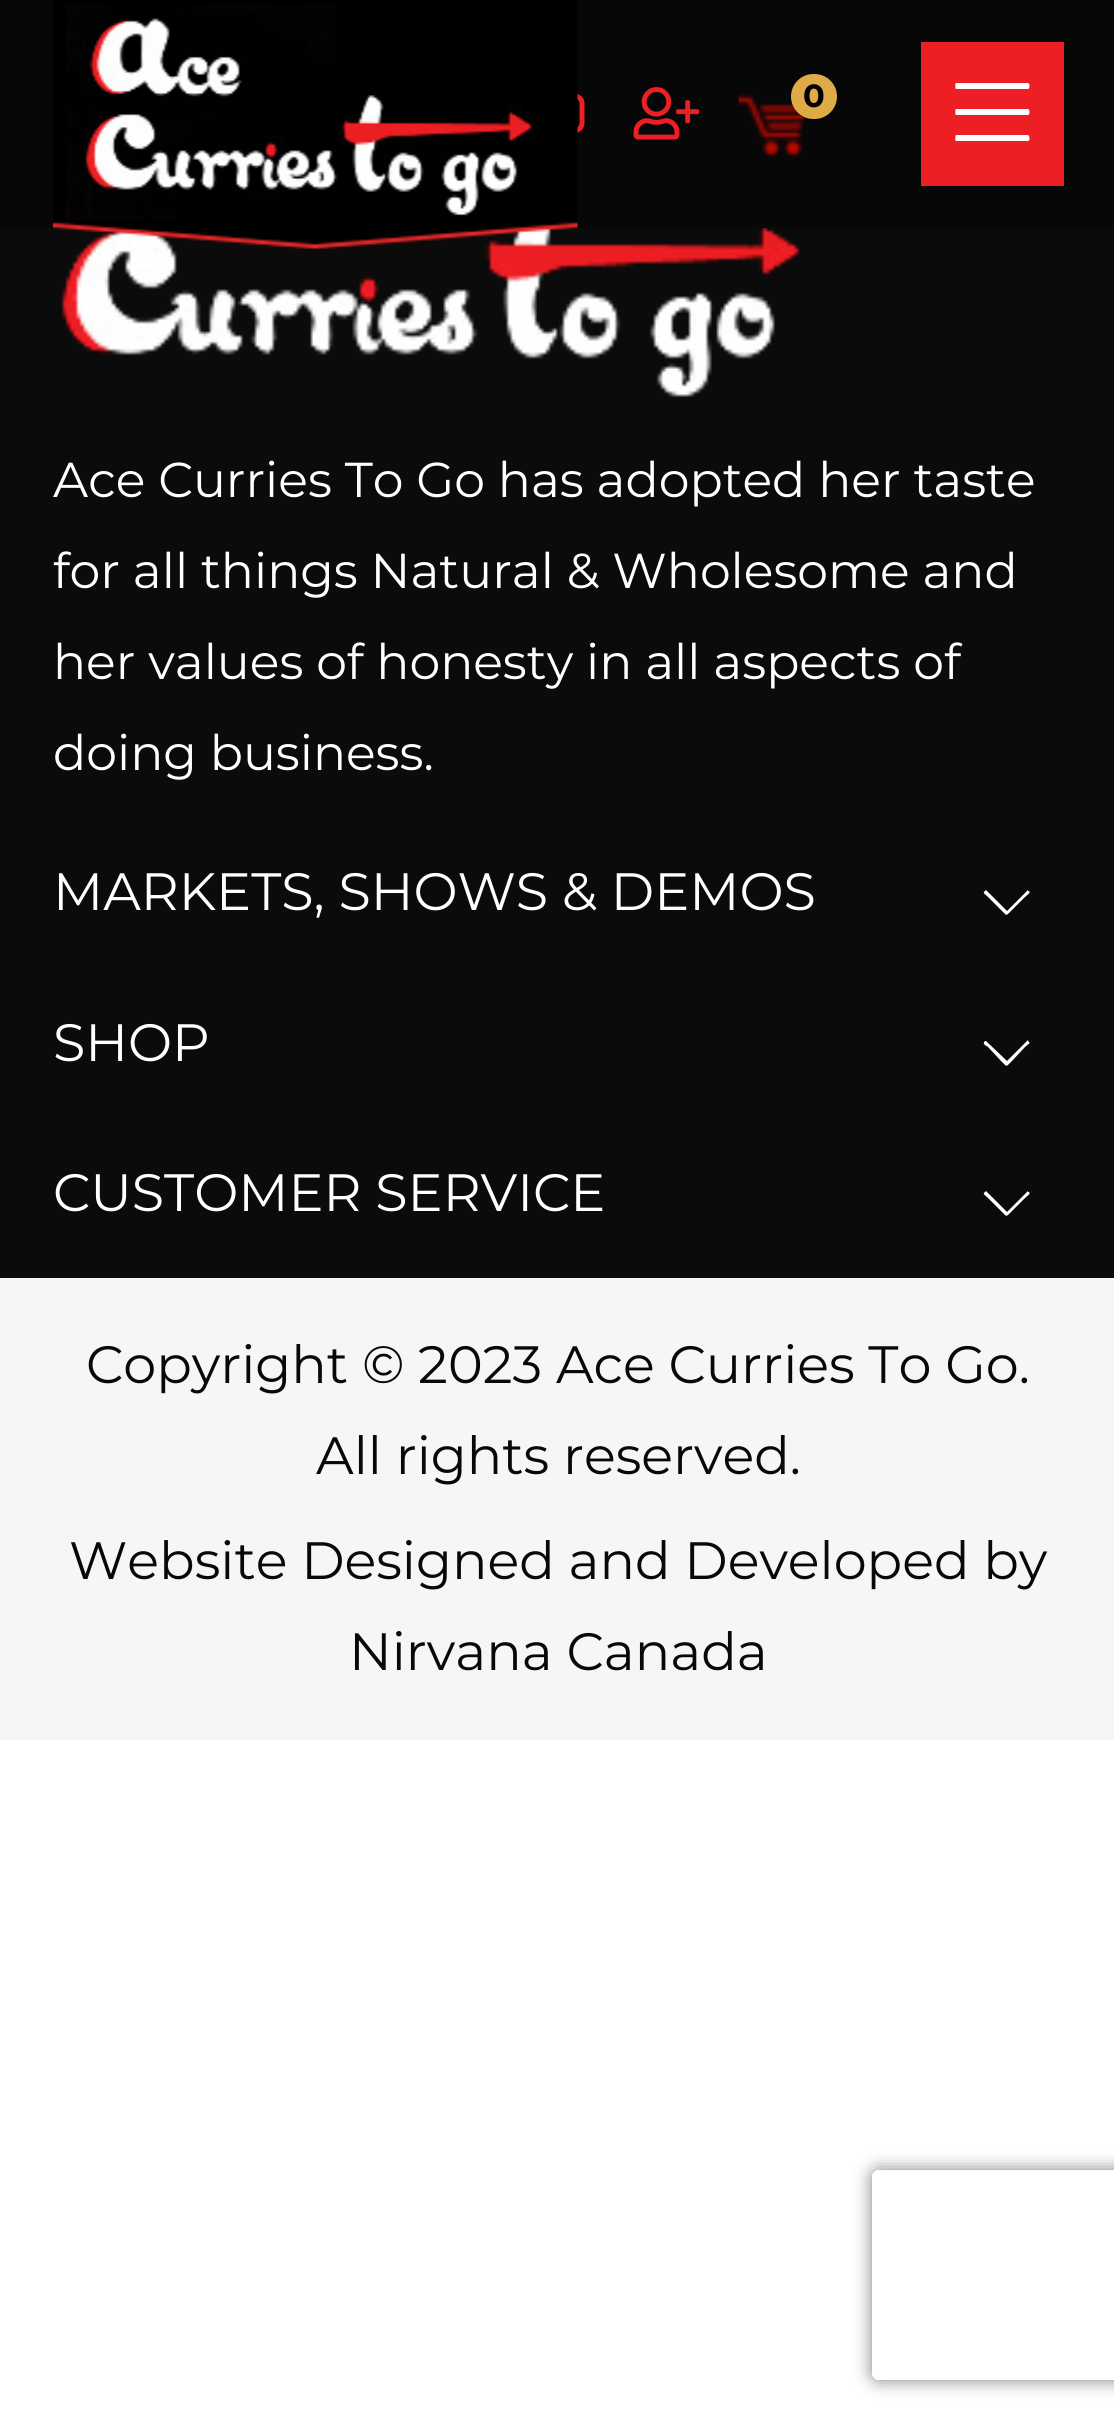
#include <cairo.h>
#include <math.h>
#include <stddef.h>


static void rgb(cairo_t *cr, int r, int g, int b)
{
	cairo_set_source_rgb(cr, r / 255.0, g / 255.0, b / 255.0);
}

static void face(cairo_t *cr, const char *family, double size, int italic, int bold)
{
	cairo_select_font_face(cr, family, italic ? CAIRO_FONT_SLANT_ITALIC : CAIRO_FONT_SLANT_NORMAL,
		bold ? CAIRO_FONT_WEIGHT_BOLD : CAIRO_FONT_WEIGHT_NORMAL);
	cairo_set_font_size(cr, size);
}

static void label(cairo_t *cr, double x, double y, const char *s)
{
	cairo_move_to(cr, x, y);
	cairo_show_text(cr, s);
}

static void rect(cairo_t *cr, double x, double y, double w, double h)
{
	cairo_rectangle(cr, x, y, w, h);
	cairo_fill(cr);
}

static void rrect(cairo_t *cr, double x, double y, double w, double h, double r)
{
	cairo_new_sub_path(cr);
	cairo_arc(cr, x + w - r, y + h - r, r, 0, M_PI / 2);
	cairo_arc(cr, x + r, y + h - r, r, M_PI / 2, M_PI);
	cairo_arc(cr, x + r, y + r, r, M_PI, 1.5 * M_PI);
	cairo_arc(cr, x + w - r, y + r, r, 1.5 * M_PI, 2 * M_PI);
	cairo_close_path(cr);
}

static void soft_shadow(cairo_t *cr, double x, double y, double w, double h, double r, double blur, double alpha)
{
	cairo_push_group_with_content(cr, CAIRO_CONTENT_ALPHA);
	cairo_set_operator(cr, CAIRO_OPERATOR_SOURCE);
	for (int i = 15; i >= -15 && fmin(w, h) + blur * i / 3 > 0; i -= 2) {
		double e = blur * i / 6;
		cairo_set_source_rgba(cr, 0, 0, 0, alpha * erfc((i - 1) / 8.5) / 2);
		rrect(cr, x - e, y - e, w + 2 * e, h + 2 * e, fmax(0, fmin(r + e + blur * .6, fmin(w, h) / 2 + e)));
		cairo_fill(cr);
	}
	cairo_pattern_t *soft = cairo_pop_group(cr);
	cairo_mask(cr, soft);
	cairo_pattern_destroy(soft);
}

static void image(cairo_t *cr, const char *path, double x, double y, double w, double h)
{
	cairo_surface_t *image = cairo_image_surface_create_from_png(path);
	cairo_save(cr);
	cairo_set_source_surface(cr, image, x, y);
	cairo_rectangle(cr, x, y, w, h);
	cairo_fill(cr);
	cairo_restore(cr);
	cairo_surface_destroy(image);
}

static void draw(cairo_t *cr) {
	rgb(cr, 255, 255, 255);
	cairo_paint(cr);
	rgb(cr, 7, 7, 7);
	rect(cr, 0, 0, 1114, 228);
	image(cr, "image1.png", 577, 94, 8, 39);
	rgb(cr, 11, 11, 11);
	rect(cr, 0, 228, 1114, 1050);
	image(cr, "image4.png", 61, 228, 739, 169);
	image(cr, "image0.png", 53, 0, 525, 249);
	rgb(cr, 237, 31, 36);
	rect(cr, 921, 42, 143, 144);
	rgb(cr, 255, 255, 255);
	cairo_new_path(cr);
	cairo_move_to(cr, 1028, 89);
	cairo_line_to(cr, 956, 89);
	cairo_curve_to(cr, 955, 89, 955, 83, 956, 83);
	cairo_line_to(cr, 1028, 83);
	cairo_curve_to(cr, 1030, 83, 1030, 89, 1028, 89);
	cairo_close_path(cr);
	cairo_move_to(cr, 1028, 115);
	cairo_line_to(cr, 956, 115);
	cairo_curve_to(cr, 955, 115, 955, 109, 956, 109);
	cairo_line_to(cr, 1028, 109);
	cairo_curve_to(cr, 1030, 109, 1030, 115, 1028, 115);
	cairo_close_path(cr);
	cairo_move_to(cr, 1028, 141);
	cairo_line_to(cr, 956, 141);
	cairo_curve_to(cr, 955, 141, 955, 136, 956, 135);
	cairo_line_to(cr, 1028, 135);
	cairo_curve_to(cr, 1030, 136, 1030, 141, 1028, 141);
	cairo_close_path(cr);
	cairo_fill(cr);
	image(cr, "image2.png", 633, 87, 67, 53);
	image(cr, "image3.png", 738, 93, 69, 66);
	rgb(cr, 223, 171, 70);
	rrect(cr, 791, 74, 46, 45, 22.5);
	cairo_fill(cr);
	face(cr, "Montserrat", 32, 0, 1);
	rgb(cr, 0, 0, 0);
	label(cr, 803, 107, "0");
	face(cr, "Montserrat", 49, 0, 0);
	rgb(cr, 255, 255, 255);
	label(cr, 53, 497, "Ace Curries To Go has adopted her taste");
	label(cr, 53, 588, "for all things Natural & Wholesome and");
	label(cr, 53, 679, "her values of honesty in all aspects of");
	label(cr, 53, 770, "doing business.");
	face(cr, "Montserrat", 52.5, 0, 0);
	label(cr, 53, 910, "MARKETS, SHOWS & DEMOS");
	cairo_new_path(cr);
	cairo_move_to(cr, 1029, 891);
	cairo_curve_to(cr, 1031, 893, 1027, 895, 1025, 897);
	cairo_line_to(cr, 1011, 911);
	cairo_curve_to(cr, 1006, 916, 1007, 916, 1002, 911);
	cairo_line_to(cr, 988, 897);
	cairo_curve_to(cr, 985, 894, 982, 893, 985, 891);
	cairo_line_to(cr, 986, 890);
	cairo_line_to(cr, 1007, 911);
	cairo_line_to(cr, 1027, 891);
	cairo_curve_to(cr, 1027, 890, 1028, 890, 1028, 891);
	cairo_close_path(cr);
	cairo_fill(cr);
	label(cr, 53, 1061, "SHOP");
	cairo_new_path(cr);
	cairo_move_to(cr, 1029, 1042);
	cairo_curve_to(cr, 1031, 1043, 1027, 1045, 1025, 1047);
	cairo_line_to(cr, 1011, 1062);
	cairo_curve_to(cr, 1006, 1067, 1007, 1067, 1002, 1062);
	cairo_line_to(cr, 988, 1047);
	cairo_curve_to(cr, 985, 1045, 982, 1044, 985, 1041);
	cairo_line_to(cr, 986, 1041);
	cairo_line_to(cr, 1007, 1061);
	cairo_line_to(cr, 1027, 1041);
	cairo_curve_to(cr, 1027, 1040, 1028, 1040, 1028, 1041);
	cairo_close_path(cr);
	cairo_fill(cr);
	label(cr, 53, 1211, "CUSTOMER SERVICE");
	cairo_new_path(cr);
	cairo_move_to(cr, 1029, 1192);
	cairo_curve_to(cr, 1031, 1194, 1027, 1196, 1025, 1198);
	cairo_line_to(cr, 1011, 1212);
	cairo_curve_to(cr, 1006, 1217, 1007, 1217, 1002, 1212);
	cairo_line_to(cr, 988, 1198);
	cairo_curve_to(cr, 985, 1195, 982, 1194, 985, 1192);
	cairo_line_to(cr, 986, 1191);
	cairo_line_to(cr, 1007, 1212);
	cairo_line_to(cr, 1027, 1192);
	cairo_curve_to(cr, 1027, 1191, 1028, 1191, 1028, 1192);
	cairo_close_path(cr);
	cairo_fill(cr);
	rgb(cr, 246, 246, 246);
	rect(cr, 0, 1278, 1114, 462);
	rgb(cr, 8, 8, 8);
	label(cr, 86, 1383, "Copyright © 2023 Ace Curries To Go.");
	label(cr, 316, 1474, "All rights reserved.");
	label(cr, 69, 1579, "Website Designed and Developed by");
	label(cr, 349, 1670, "Nirvana Canada");
	cairo_save(cr);
	cairo_set_fill_rule(cr, CAIRO_FILL_RULE_EVEN_ODD);
	cairo_new_path(cr);
	cairo_move_to(cr, 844, 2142);
	cairo_line_to(cr, 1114, 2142);
	cairo_line_to(cr, 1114, 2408);
	cairo_line_to(cr, 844, 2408);
	cairo_close_path(cr);
	cairo_move_to(cr, 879, 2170);
	cairo_line_to(cr, 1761, 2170);
	cairo_curve_to(cr, 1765, 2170, 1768, 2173, 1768, 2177);
	cairo_line_to(cr, 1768, 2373);
	cairo_curve_to(cr, 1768, 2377, 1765, 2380, 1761, 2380);
	cairo_line_to(cr, 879, 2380);
	cairo_curve_to(cr, 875, 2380, 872, 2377, 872, 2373);
	cairo_line_to(cr, 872, 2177);
	cairo_curve_to(cr, 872, 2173, 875, 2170, 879, 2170);
	cairo_close_path(cr);
	cairo_clip(cr);
	rgb(cr, 128, 128, 128);
	soft_shadow(cr, 872, 2170, 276, 210, 7, 9, 1);
	cairo_restore(cr);
}

int main(void) {
	cairo_surface_t *surface = cairo_image_surface_create(CAIRO_FORMAT_RGB24, 1114, 2428);
	cairo_t *cr = cairo_create(surface);
	cairo_font_options_t *options = cairo_font_options_create();
	cairo_font_options_set_hint_metrics(options, CAIRO_HINT_METRICS_OFF);
	cairo_font_options_set_hint_style(options, CAIRO_HINT_STYLE_NONE);
	cairo_set_font_options(cr, options);
	cairo_set_miter_limit(cr, 4);
	draw(cr);
	cairo_surface_write_to_png(surface, "render.png");
	cairo_font_options_destroy(options);
	cairo_destroy(cr);
	cairo_surface_destroy(surface);
	return 0;
}
